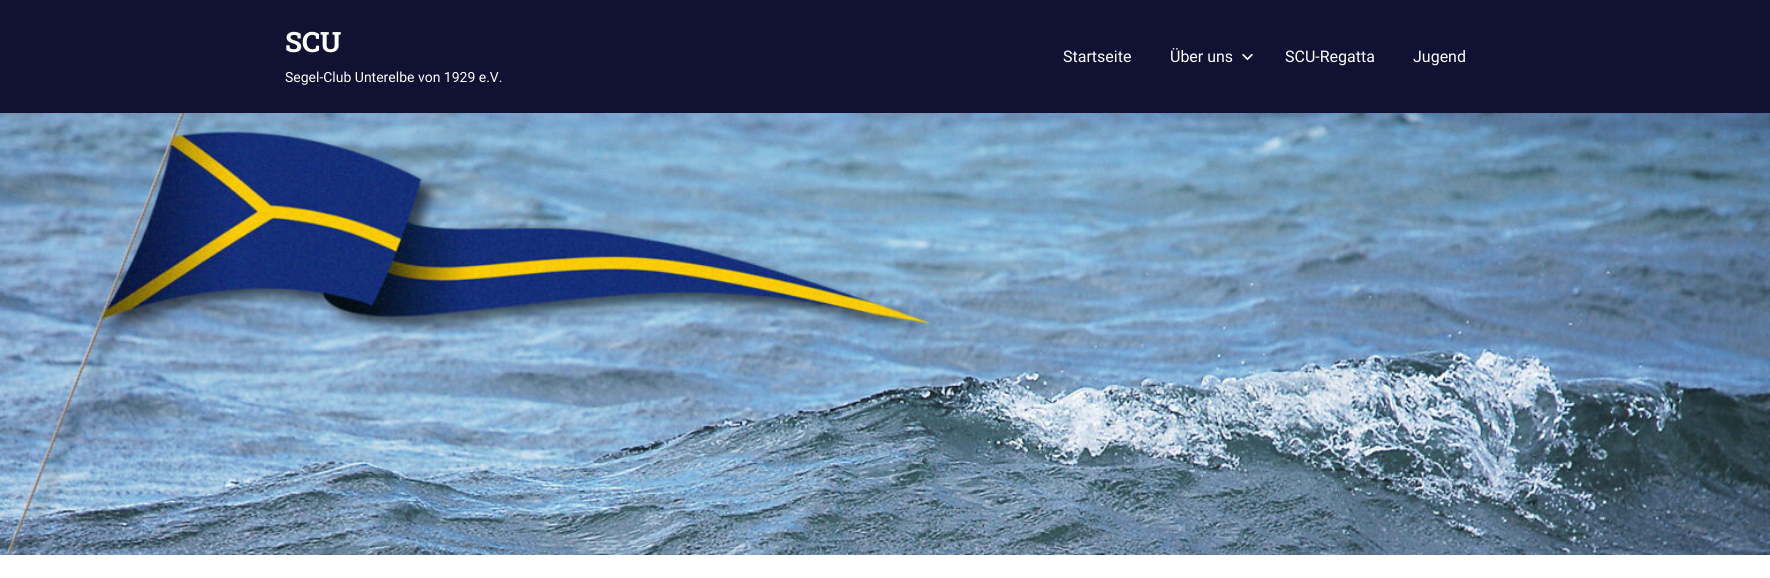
#include <cairo.h>
#include <math.h>
#include <stddef.h>


static void rgb(cairo_t *cr, int r, int g, int b)
{
	cairo_set_source_rgb(cr, r / 255.0, g / 255.0, b / 255.0);
}

static void face(cairo_t *cr, const char *family, double size, int italic, int bold)
{
	cairo_select_font_face(cr, family, italic ? CAIRO_FONT_SLANT_ITALIC : CAIRO_FONT_SLANT_NORMAL,
		bold ? CAIRO_FONT_WEIGHT_BOLD : CAIRO_FONT_WEIGHT_NORMAL);
	cairo_set_font_size(cr, size);
}

static void label(cairo_t *cr, double x, double y, const char *s)
{
	cairo_move_to(cr, x, y);
	cairo_show_text(cr, s);
}

static void rect(cairo_t *cr, double x, double y, double w, double h)
{
	cairo_rectangle(cr, x, y, w, h);
	cairo_fill(cr);
}

static void image(cairo_t *cr, const char *path, double x, double y, double w, double h)
{
	cairo_surface_t *image = cairo_image_surface_create_from_png(path);
	cairo_save(cr);
	cairo_set_source_surface(cr, image, x, y);
	cairo_rectangle(cr, x, y, w, h);
	cairo_fill(cr);
	cairo_restore(cr);
	cairo_surface_destroy(image);
}

static void draw(cairo_t *cr) {
	rgb(cr, 255, 255, 255);
	cairo_paint(cr);
	rgb(cr, 17, 17, 51);
	rect(cr, 0, 0, 1770, 113);
	face(cr, "Roboto Slab", 28, 0, 1);
	rgb(cr, 255, 255, 255);
	label(cr, 285, 52, "SCU");
	face(cr, "Roboto", 14, 0, 0);
	label(cr, 285, 82, "Segel-Club Unterelbe von 1929 e.V.");
	face(cr, "Roboto", 16, 0, 0);
	label(cr, 1063, 62, "Startseite");
	label(cr, 1170, 62, "Über uns");
	image(cr, "image0.png", 1242, 53, 11, 8);
	label(cr, 1285, 62, "SCU-Regatta");
	label(cr, 1413, 62, "Jugend");
	image(cr, "image1.png", 0, 113, 1770, 442);
}

int main(void) {
	cairo_surface_t *surface = cairo_image_surface_create(CAIRO_FORMAT_RGB24, 1770, 578);
	cairo_t *cr = cairo_create(surface);
	cairo_font_options_t *options = cairo_font_options_create();
	cairo_font_options_set_hint_metrics(options, CAIRO_HINT_METRICS_OFF);
	cairo_font_options_set_hint_style(options, CAIRO_HINT_STYLE_NONE);
	cairo_set_font_options(cr, options);
	cairo_set_miter_limit(cr, 4);
	draw(cr);
	cairo_surface_write_to_png(surface, "render.png");
	cairo_font_options_destroy(options);
	cairo_destroy(cr);
	cairo_surface_destroy(surface);
	return 0;
}
